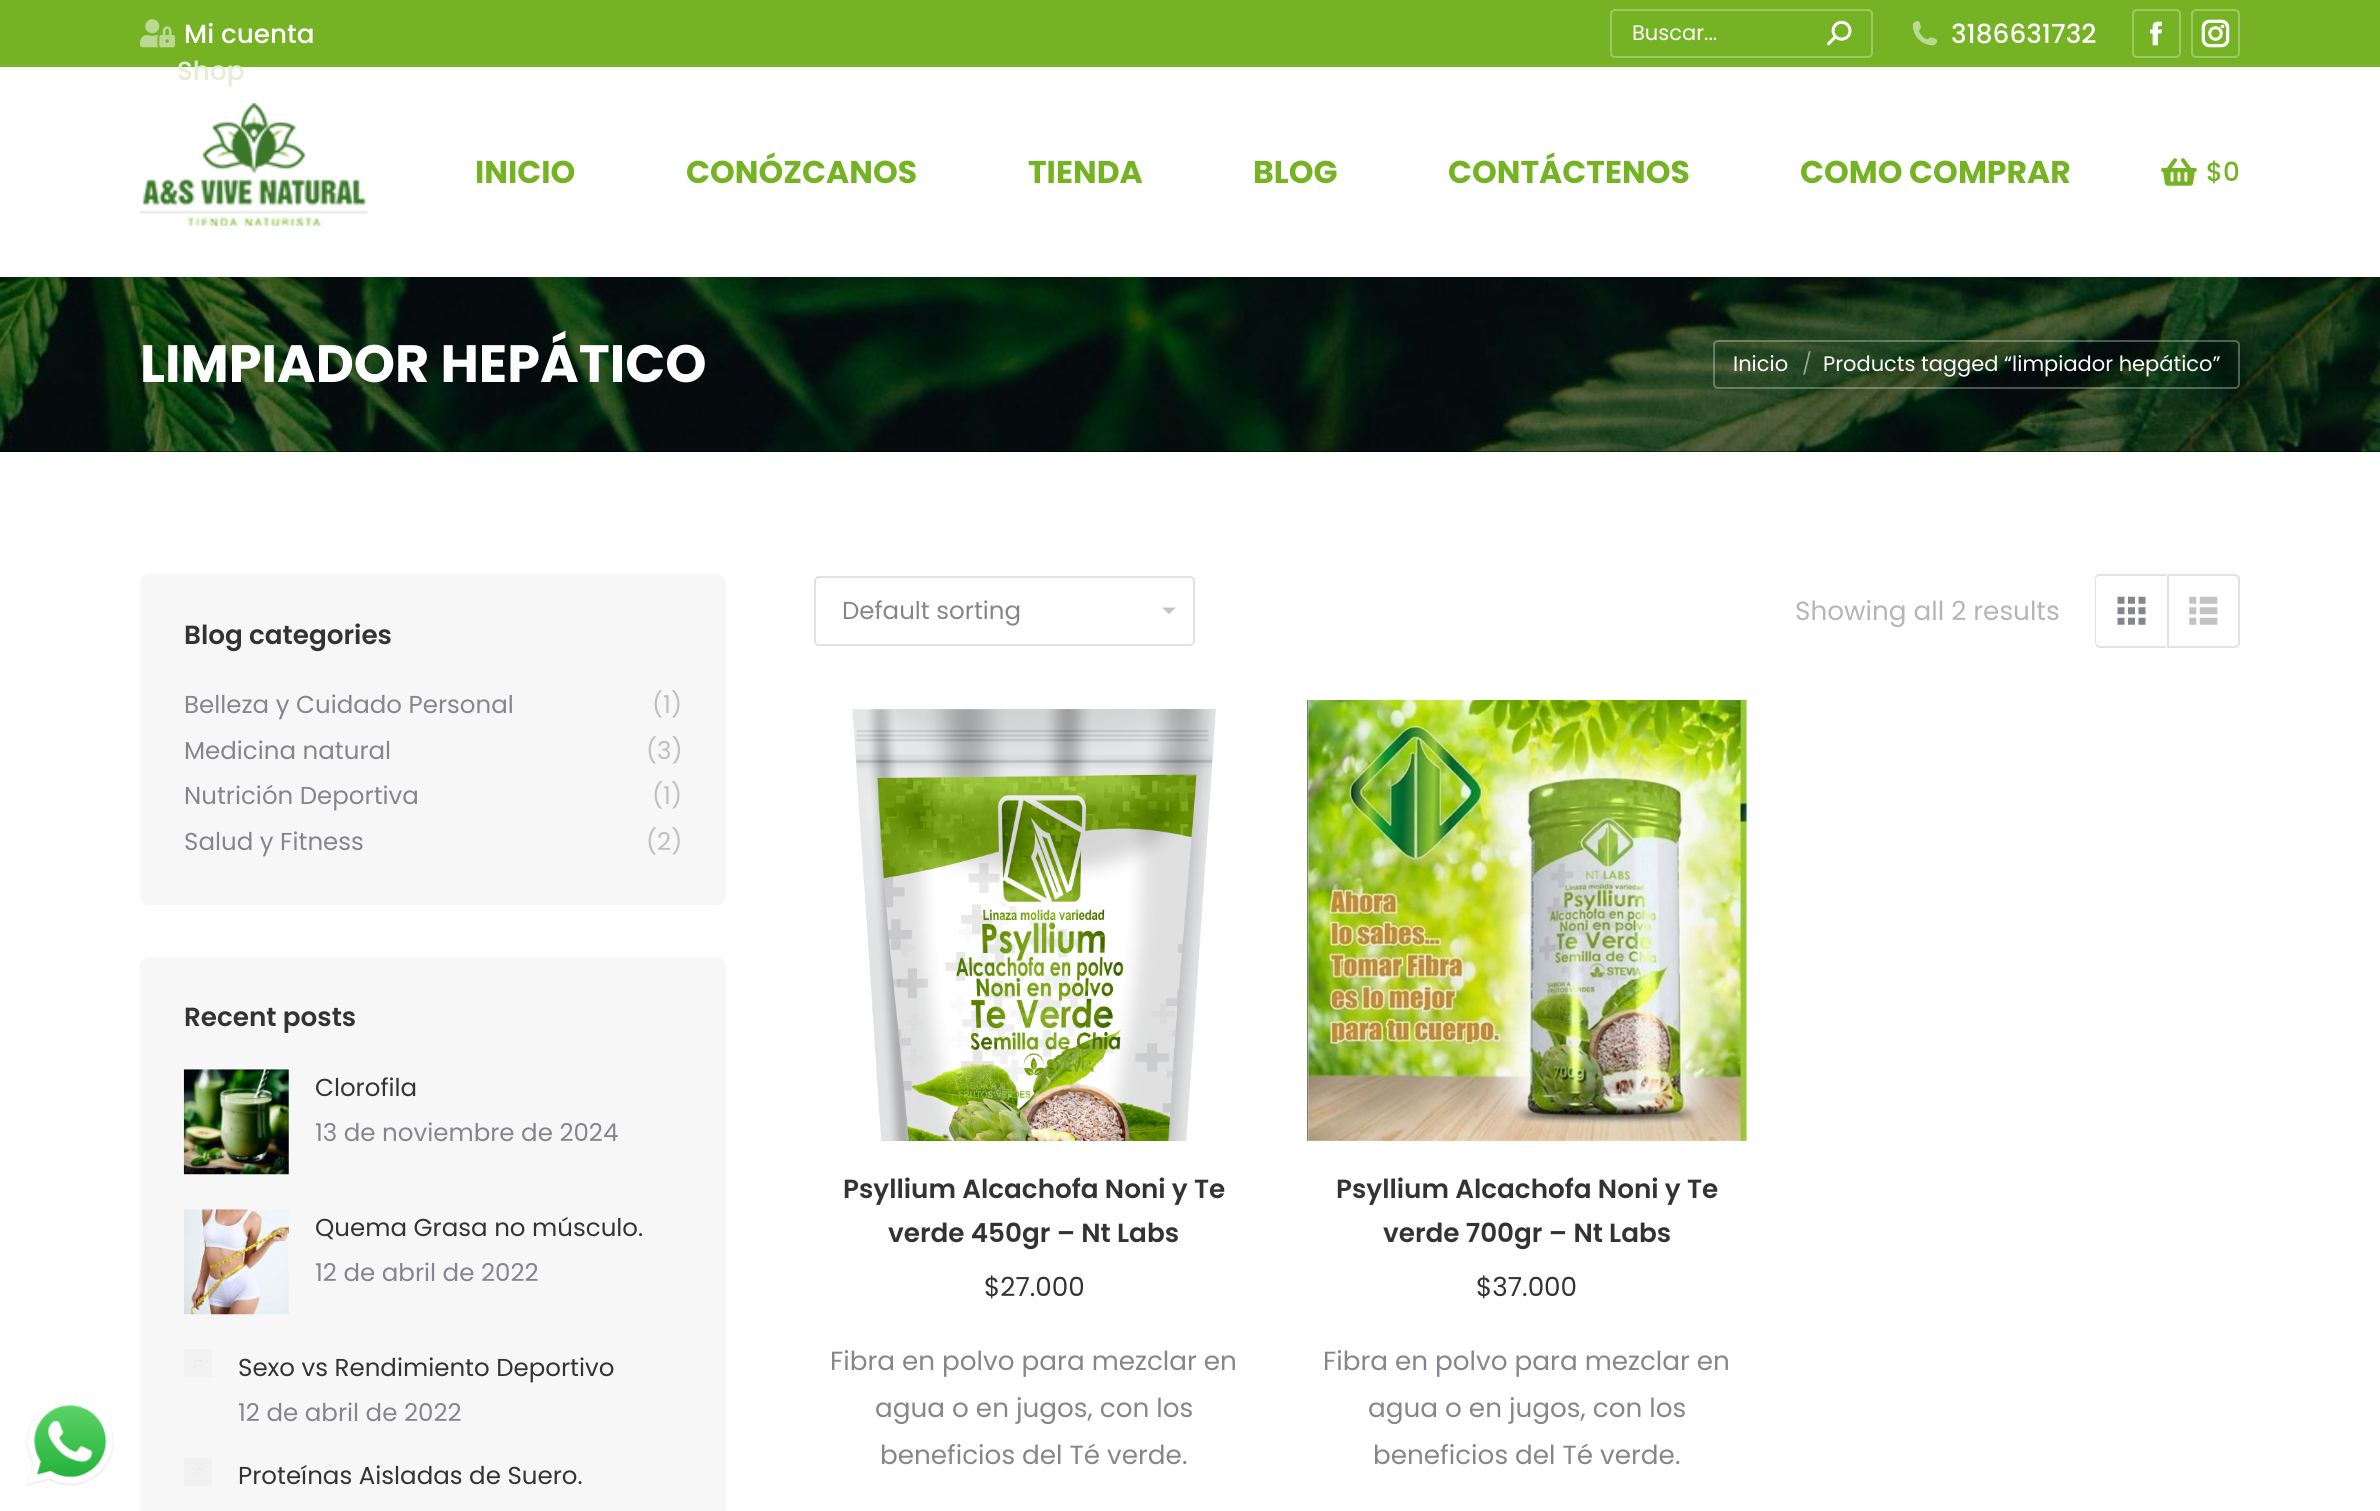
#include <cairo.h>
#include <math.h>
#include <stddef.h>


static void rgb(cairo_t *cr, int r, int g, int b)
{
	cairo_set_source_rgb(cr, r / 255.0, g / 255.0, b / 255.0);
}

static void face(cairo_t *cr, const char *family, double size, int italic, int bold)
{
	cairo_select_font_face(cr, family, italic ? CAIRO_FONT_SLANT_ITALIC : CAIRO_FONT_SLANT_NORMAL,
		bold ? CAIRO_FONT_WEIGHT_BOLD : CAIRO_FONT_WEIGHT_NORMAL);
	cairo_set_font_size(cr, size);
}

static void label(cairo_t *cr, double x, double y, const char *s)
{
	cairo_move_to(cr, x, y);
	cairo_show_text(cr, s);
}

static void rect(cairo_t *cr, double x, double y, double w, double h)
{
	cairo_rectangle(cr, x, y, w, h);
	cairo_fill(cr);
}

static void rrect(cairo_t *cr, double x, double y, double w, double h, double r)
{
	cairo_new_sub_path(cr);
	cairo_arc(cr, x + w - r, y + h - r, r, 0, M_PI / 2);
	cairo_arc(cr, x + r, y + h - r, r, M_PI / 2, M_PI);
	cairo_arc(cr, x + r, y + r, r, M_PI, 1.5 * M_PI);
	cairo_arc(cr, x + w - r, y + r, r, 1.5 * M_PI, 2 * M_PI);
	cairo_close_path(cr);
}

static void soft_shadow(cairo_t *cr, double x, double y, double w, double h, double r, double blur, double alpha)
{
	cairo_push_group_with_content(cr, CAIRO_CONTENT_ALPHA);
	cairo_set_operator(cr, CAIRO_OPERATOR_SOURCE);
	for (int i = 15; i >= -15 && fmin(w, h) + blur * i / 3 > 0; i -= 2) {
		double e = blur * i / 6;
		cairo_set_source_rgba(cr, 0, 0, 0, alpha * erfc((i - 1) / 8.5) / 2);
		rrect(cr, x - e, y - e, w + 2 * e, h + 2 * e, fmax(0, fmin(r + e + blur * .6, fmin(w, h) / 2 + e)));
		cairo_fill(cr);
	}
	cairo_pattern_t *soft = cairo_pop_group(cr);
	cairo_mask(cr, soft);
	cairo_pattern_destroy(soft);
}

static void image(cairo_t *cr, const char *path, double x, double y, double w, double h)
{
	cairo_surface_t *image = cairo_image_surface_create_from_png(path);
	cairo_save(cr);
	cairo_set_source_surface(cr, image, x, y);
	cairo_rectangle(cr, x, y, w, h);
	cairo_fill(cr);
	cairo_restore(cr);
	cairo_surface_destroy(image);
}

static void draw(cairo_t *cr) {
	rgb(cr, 255, 255, 255);
	cairo_paint(cr);
	image(cr, "image0.png", 26, 1398, 88, 88);
	rgb(cr, 0, 0, 0);
	rect(cr, 0, 451, 2380, 1);
	image(cr, "image8.png", 0, 277, 2380, 175);
	rgb(cr, 0, 0, 0);
	soft_shadow(cr, -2, -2, 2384, 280, 0, 13, 0.07);
	rgb(cr, 255, 255, 255);
	rect(cr, 0, 67, 2380, 210);
	rgb(cr, 117, 179, 37);
	rect(cr, 0, 0, 2380, 67);
	image(cr, "image1.png", 140, 19, 35, 29);
	face(cr, "Poppins Medium", 26.25, 0, 0);
	rgb(cr, 255, 255, 255);
	label(cr, 184, 43, "Mi cuenta");
	rgb(cr, 226, 239, 209);
	label(cr, 177, 80, "Shop");
	rrect(cr, 1611, 10, 261, 47, 4);
	rgb(cr, 158, 202, 102);
	cairo_stroke(cr);
	face(cr, "Poppins", 21, 0, 0);
	rgb(cr, 255, 255, 255);
	label(cr, 1632, 40, "Buscar...");
	image(cr, "image2.png", 1827, 20, 25, 26);
	image(cr, "image3.png", 1912, 21, 26, 25);
	face(cr, "Poppins Medium", 26.25, 0, 0);
	label(cr, 1951, 43, "3186631732");
	rrect(cr, 2133, 10, 47, 47, 4);
	rgb(cr, 158, 202, 102);
	cairo_stroke(cr);
	image(cr, "image4.png", 2150, 21, 12, 25);
	rrect(cr, 2192, 10, 47, 47, 4);
	cairo_stroke(cr);
	image(cr, "image5.png", 2201, 19, 29, 29);
	image(cr, "image6.png", 140, 103, 228, 123);
	face(cr, "Poppins", 31.5, 0, 1);
	rgb(cr, 117, 179, 37);
	label(cr, 475, 183, "INICIO");
	label(cr, 686, 183, "CONÓZCANOS");
	label(cr, 1028, 183, "TIENDA");
	label(cr, 1253, 183, "BLOG");
	label(cr, 1448, 183, "CONTÁCTENOS");
	label(cr, 1800, 183, "COMO COMPRAR");
	image(cr, "image7.png", 2161, 158, 36, 28);
	face(cr, "Poppins Medium", 26.25, 0, 0);
	label(cr, 2206, 181, "$0");
	face(cr, "Poppins", 52.5, 0, 1);
	rgb(cr, 255, 255, 255);
	label(cr, 140, 382, "LIMPIADOR HEPÁTICO");
	rrect(cr, 1714, 341, 525, 47, 4);
	cairo_set_source_rgba(cr, 1, 1, 1, 0.3);
	cairo_stroke(cr);
	face(cr, "Poppins", 21, 0, 0);
	rgb(cr, 255, 255, 255);
	label(cr, 1733, 371, "Inicio");
	rgb(cr, 146, 162, 144);
	label(cr, 1802, 371, "/");
	rgb(cr, 255, 255, 255);
	label(cr, 1823, 371, "Products tagged “limpiador hepático”");
	rgb(cr, 247, 247, 247);
	rrect(cr, 140, 574, 586, 331, 9);
	cairo_fill(cr);
	face(cr, "Poppins SemiBold", 26.25, 0, 0);
	rgb(cr, 51, 51, 51);
	label(cr, 184, 644, "Blog categories");
	face(cr, "Poppins", 24.5, 0, 0);
	rgb(cr, 133, 134, 140);
	label(cr, 184, 713, "Belleza y Cuidado Personal");
	rgb(cr, 190, 191, 194);
	label(cr, 652, 713, "(1)");
	rgb(cr, 133, 134, 140);
	label(cr, 184, 759, "Medicina natural");
	rgb(cr, 190, 191, 194);
	label(cr, 646, 759, "(3)");
	rgb(cr, 133, 134, 140);
	label(cr, 184, 804, "Nutrición Deportiva");
	rgb(cr, 190, 191, 194);
	label(cr, 652, 804, "(1)");
	rgb(cr, 133, 134, 140);
	label(cr, 184, 850, "Salud y Fitness");
	rgb(cr, 190, 191, 194);
	label(cr, 646, 850, "(2)");
	rgb(cr, 247, 247, 247);
	rrect(cr, 140, 957, 586, 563, 9);
	cairo_fill(cr);
	face(cr, "Poppins SemiBold", 26.25, 0, 0);
	rgb(cr, 51, 51, 51);
	label(cr, 184, 1026, "Recent posts");
	image(cr, "image9.png", 183, 1069, 106, 106);
	face(cr, "Poppins", 24.5, 0, 0);
	label(cr, 315, 1096, "Clorofila");
	rgb(cr, 133, 134, 140);
	label(cr, 315, 1141, "13 de noviembre de 2024");
	image(cr, "image10.png", 184, 1209, 105, 106);
	rgb(cr, 51, 51, 51);
	label(cr, 315, 1236, "Quema Grasa no músculo.");
	rgb(cr, 133, 134, 140);
	label(cr, 315, 1281, "12 de abril de 2022");
	rgb(cr, 241, 241, 242);
	rect(cr, 184, 1349, 28, 28);
	image(cr, "image11.png", 194, 1360, 7, 7);
	rgb(cr, 51, 51, 51);
	label(cr, 238, 1376, "Sexo vs Rendimiento Deportivo");
	rgb(cr, 133, 134, 140);
	label(cr, 238, 1421, "12 de abril de 2022");
	rgb(cr, 241, 241, 242);
	rect(cr, 184, 1458, 28, 28);
	image(cr, "image12.png", 194, 1468, 7, 7);
	rgb(cr, 51, 51, 51);
	label(cr, 238, 1484, "Proteínas Aisladas de Suero.");
	rgb(cr, 194, 195, 198);
	cairo_new_path(cr);
	cairo_move_to(cr, 1162, 607.5);
	cairo_line_to(cr, 1169, 614);
	cairo_line_to(cr, 1176, 607.5);
	cairo_close_path(cr);
	cairo_fill(cr);
	rrect(cr, 815, 577, 379, 68, 4);
	rgb(cr, 226, 226, 226);
	cairo_stroke(cr);
	rgb(cr, 133, 134, 140);
	label(cr, 842, 619, "Default sorting");
	face(cr, "Poppins", 26.25, 0, 0);
	rgb(cr, 180, 181, 187);
	label(cr, 1795, 620, "Showing all 2 results");
	rgb(cr, 226, 226, 226);
	cairo_set_fill_rule(cr, CAIRO_FILL_RULE_EVEN_ODD);
	cairo_new_path(cr);
	cairo_move_to(cr, 2100, 574);
	cairo_line_to(cr, 2166, 574);
	cairo_line_to(cr, 2166, 648);
	cairo_line_to(cr, 2100, 648);
	cairo_curve_to(cr, 2097, 648, 2095, 645, 2095, 642);
	cairo_line_to(cr, 2095, 579);
	cairo_curve_to(cr, 2095, 576, 2097, 574, 2100, 574);
	cairo_close_path(cr);
	cairo_move_to(cr, 2100, 576);
	cairo_line_to(cr, 2166, 576);
	cairo_line_to(cr, 2166, 646);
	cairo_line_to(cr, 2100, 646);
	cairo_curve_to(cr, 2098, 646, 2096, 644, 2096, 642);
	cairo_line_to(cr, 2096, 579);
	cairo_curve_to(cr, 2096, 577, 2098, 576, 2100, 576);
	cairo_close_path(cr);
	cairo_fill(cr);
	image(cr, "image13.png", 2117, 596, 29, 29);
	cairo_new_path(cr);
	cairo_move_to(cr, 2168, 575);
	cairo_line_to(cr, 2235, 575);
	cairo_curve_to(cr, 2237, 575, 2239, 577, 2239, 579);
	cairo_line_to(cr, 2239, 643);
	cairo_curve_to(cr, 2239, 645, 2237, 647, 2235, 647);
	cairo_line_to(cr, 2168, 647);
	cairo_close_path(cr);
	cairo_stroke(cr);
	image(cr, "image14.png", 2189, 596, 29, 29);
	image(cr, "image15.png", 852, 709, 364, 432);
	face(cr, "Poppins SemiBold", 26.25, 0, 0);
	rgb(cr, 51, 51, 51);
	label(cr, 843, 1198, "Psyllium Alcachofa Noni y Te");
	label(cr, 888, 1242, "verde 450gr – Nt Labs");
	face(cr, "Poppins", 26.25, 0, 0);
	label(cr, 984, 1296, "$27.000");
	rgb(cr, 133, 134, 140);
	label(cr, 830, 1370, "Fibra en polvo para mezclar en");
	label(cr, 875, 1417, "agua o en jugos, con los");
	label(cr, 880, 1464, "beneficios del Té verde.");
	image(cr, "image16.png", 1307, 700, 440, 441);
	face(cr, "Poppins SemiBold", 26.25, 0, 0);
	rgb(cr, 51, 51, 51);
	label(cr, 1336, 1198, "Psyllium Alcachofa Noni y Te");
	label(cr, 1383, 1242, "verde 700gr – Nt Labs");
	face(cr, "Poppins", 26.25, 0, 0);
	label(cr, 1476, 1296, "$37.000");
	rgb(cr, 133, 134, 140);
	label(cr, 1323, 1370, "Fibra en polvo para mezclar en");
	label(cr, 1368, 1417, "agua o en jugos, con los");
	label(cr, 1373, 1464, "beneficios del Té verde.");
}

int main(void) {
	cairo_surface_t *surface = cairo_image_surface_create(CAIRO_FORMAT_RGB24, 2380, 1511);
	cairo_t *cr = cairo_create(surface);
	cairo_font_options_t *options = cairo_font_options_create();
	cairo_font_options_set_hint_metrics(options, CAIRO_HINT_METRICS_OFF);
	cairo_font_options_set_hint_style(options, CAIRO_HINT_STYLE_NONE);
	cairo_set_font_options(cr, options);
	cairo_set_miter_limit(cr, 4);
	draw(cr);
	cairo_surface_write_to_png(surface, "render.png");
	cairo_font_options_destroy(options);
	cairo_destroy(cr);
	cairo_surface_destroy(surface);
	return 0;
}
